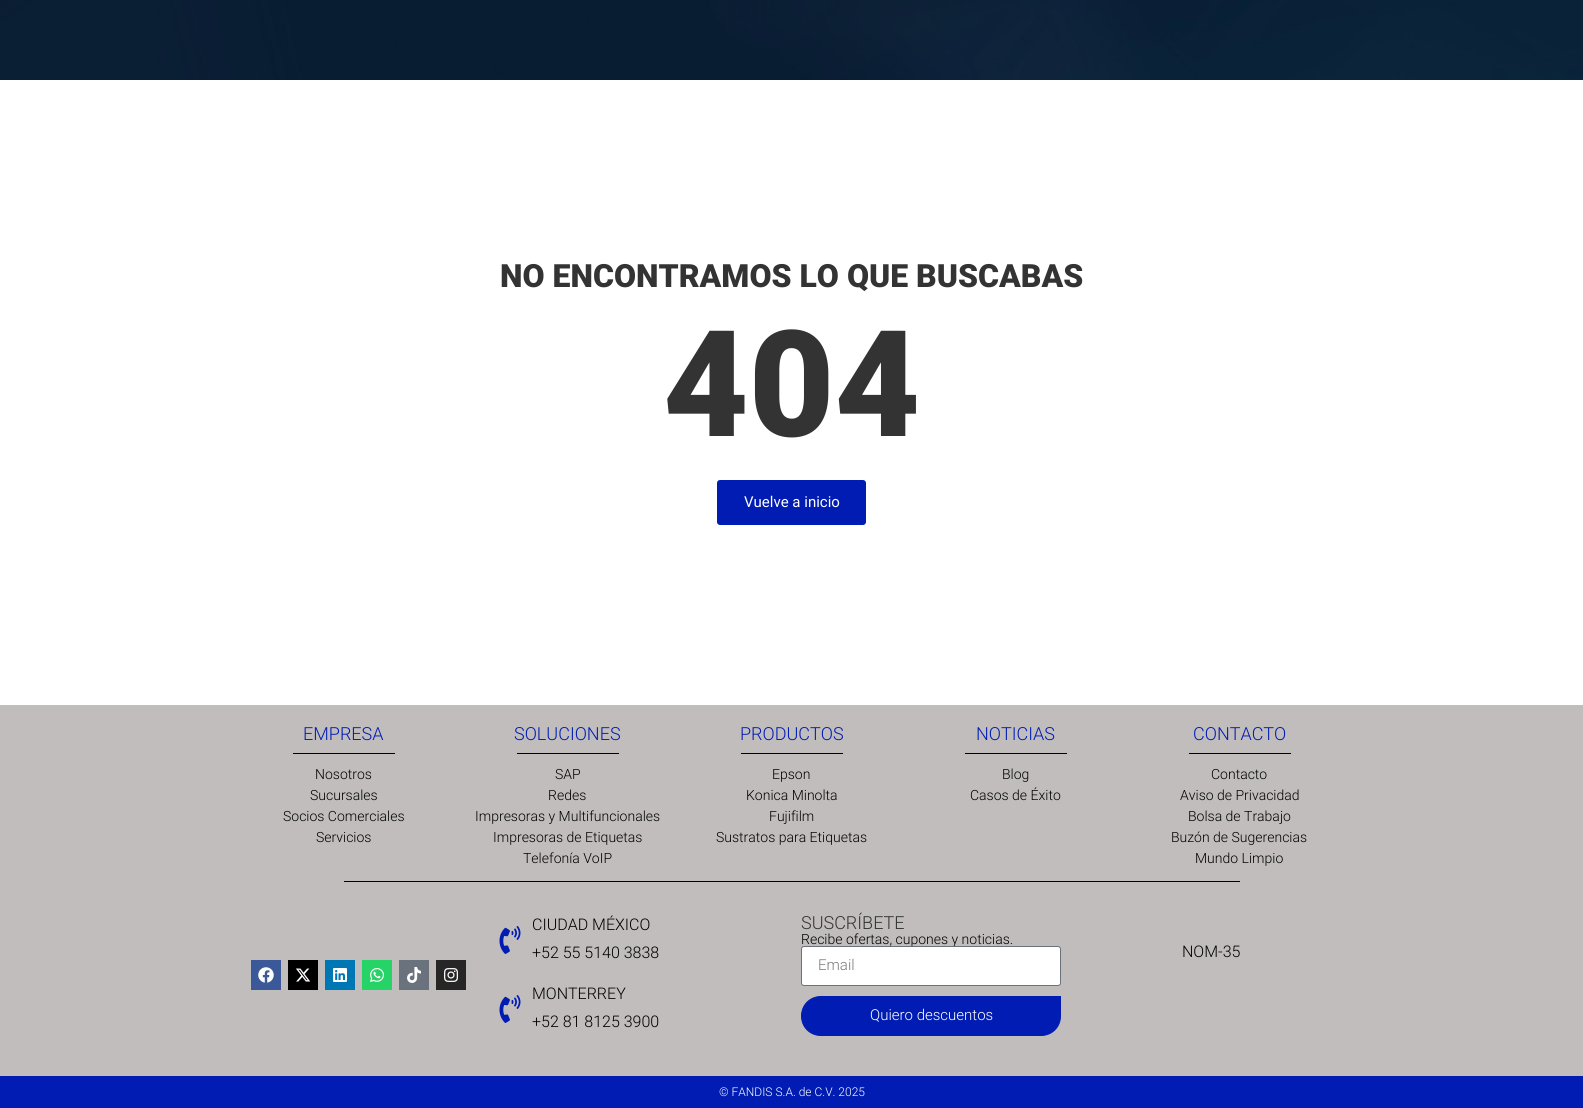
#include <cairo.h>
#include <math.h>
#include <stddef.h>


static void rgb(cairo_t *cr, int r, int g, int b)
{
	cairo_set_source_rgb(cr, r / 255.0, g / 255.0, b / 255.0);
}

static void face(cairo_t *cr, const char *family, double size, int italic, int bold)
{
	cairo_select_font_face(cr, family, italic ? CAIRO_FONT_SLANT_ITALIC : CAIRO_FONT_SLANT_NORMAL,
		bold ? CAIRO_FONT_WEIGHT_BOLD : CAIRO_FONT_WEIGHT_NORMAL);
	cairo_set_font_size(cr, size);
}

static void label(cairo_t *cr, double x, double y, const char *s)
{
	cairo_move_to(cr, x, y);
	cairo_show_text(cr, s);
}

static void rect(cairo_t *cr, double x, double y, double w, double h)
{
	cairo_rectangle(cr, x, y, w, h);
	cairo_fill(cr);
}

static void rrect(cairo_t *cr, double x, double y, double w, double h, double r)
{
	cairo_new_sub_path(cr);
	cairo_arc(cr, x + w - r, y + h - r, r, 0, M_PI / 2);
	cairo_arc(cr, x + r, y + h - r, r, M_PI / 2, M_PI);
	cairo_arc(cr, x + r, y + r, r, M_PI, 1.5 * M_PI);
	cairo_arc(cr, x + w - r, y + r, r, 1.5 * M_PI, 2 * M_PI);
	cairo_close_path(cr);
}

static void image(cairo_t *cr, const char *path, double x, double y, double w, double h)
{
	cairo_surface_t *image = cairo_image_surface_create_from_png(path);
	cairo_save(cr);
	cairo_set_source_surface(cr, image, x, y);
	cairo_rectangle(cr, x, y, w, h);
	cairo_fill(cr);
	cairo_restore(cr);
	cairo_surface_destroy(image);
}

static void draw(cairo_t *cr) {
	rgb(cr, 255, 255, 255);
	cairo_paint(cr);
	image(cr, "image0.png", 0, 0, 1583, 80);
	face(cr, "Roboto Black", 32, 0, 0);
	rgb(cr, 51, 51, 51);
	label(cr, 500, 287, "NO ENCONTRAMOS LO QUE BUSCABAS");
	face(cr, "Roboto Black", 148, 0, 0);
	label(cr, 663, 436, "404");
	rgb(cr, 0, 28, 179);
	rrect(cr, 718.5, 481.5, 146, 42, 1.5);
	cairo_fill_preserve(cr);
	cairo_set_line_width(cr, 3);
	cairo_stroke(cr);
	face(cr, "Roboto", 15, 0, 0);
	rgb(cr, 255, 255, 255);
	label(cr, 744, 507, "Vuelve a inicio");
	rgb(cr, 193, 189, 189);
	rect(cr, 0, 705, 1583, 371);
	face(cr, "Roboto Light", 18, 0, 0);
	rgb(cr, 0, 28, 179);
	label(cr, 303, 740, "EMPRESA");
	rgb(cr, 0, 0, 0);
	rect(cr, 293, 753, 102, 1);
	face(cr, "Roboto Light", 14, 0, 0);
	label(cr, 315, 779, "Nosotros");
	label(cr, 310, 800, "Sucursales");
	label(cr, 283, 821, "Socios Comerciales");
	label(cr, 316, 842, "Servicios");
	face(cr, "Roboto Light", 18, 0, 0);
	rgb(cr, 0, 28, 179);
	label(cr, 514, 740, "SOLUCIONES");
	rgb(cr, 0, 0, 0);
	rect(cr, 517, 753, 102, 1);
	face(cr, "Roboto Light", 14, 0, 0);
	label(cr, 555, 779, "SAP");
	label(cr, 548, 800, "Redes");
	label(cr, 475, 821, "Impresoras y Multifuncionales");
	label(cr, 493, 842, "Impresoras de Etiquetas");
	label(cr, 523, 863, "Telefonía VoIP");
	face(cr, "Roboto Light", 18, 0, 0);
	rgb(cr, 0, 28, 179);
	label(cr, 740, 740, "PRODUCTOS");
	rgb(cr, 0, 0, 0);
	rect(cr, 741, 753, 102, 1);
	face(cr, "Roboto Light", 14, 0, 0);
	label(cr, 772, 779, "Epson");
	label(cr, 746, 800, "Konica Minolta");
	label(cr, 769, 821, "Fujifilm");
	label(cr, 716, 842, "Sustratos para Etiquetas");
	face(cr, "Roboto Light", 18, 0, 0);
	rgb(cr, 0, 28, 179);
	label(cr, 976, 740, "NOTICIAS");
	rgb(cr, 0, 0, 0);
	rect(cr, 965, 753, 102, 1);
	face(cr, "Roboto Light", 14, 0, 0);
	label(cr, 1002, 779, "Blog");
	label(cr, 970, 800, "Casos de Éxito");
	face(cr, "Roboto Light", 18, 0, 0);
	rgb(cr, 0, 28, 179);
	label(cr, 1193, 740, "CONTACTO");
	rgb(cr, 0, 0, 0);
	rect(cr, 1189, 753, 102, 1);
	face(cr, "Roboto Light", 14, 0, 0);
	label(cr, 1211, 779, "Contacto");
	label(cr, 1180, 800, "Aviso de Privacidad");
	label(cr, 1188, 821, "Bolsa de Trabajo");
	label(cr, 1171, 842, "Buzón de Sugerencias");
	label(cr, 1195, 863, "Mundo Limpio");
	rect(cr, 344, 881, 896, 1);
	image(cr, "image1.png", 499, 926, 22, 28);
	face(cr, "Roboto Light", 16, 0, 0);
	label(cr, 532, 930, "CIUDAD MÉXICO");
	label(cr, 532, 958, "+52 55 5140 3838");
	image(cr, "image1.png", 499, 995, 22, 28);
	label(cr, 532, 999, "MONTERREY");
	label(cr, 532, 1027, "+52 81 8125 3900");
	face(cr, "Roboto Light", 18, 0, 0);
	rgb(cr, 51, 51, 51);
	label(cr, 801, 929, "SUSCRÍBETE");
	face(cr, "Roboto Light", 14, 0, 0);
	rgb(cr, 0, 0, 0);
	label(cr, 801, 944, "Recibe ofertas, cupones y noticias.");
	rgb(cr, 255, 255, 255);
	rrect(cr, 801.5, 946.5, 259, 39, 2.5);
	cairo_fill_preserve(cr);
	rgb(cr, 105, 114, 125);
	cairo_set_line_width(cr, 1);
	cairo_stroke(cr);
	face(cr, "Roboto Light", 15, 0, 0);
	rgb(cr, 121, 122, 124);
	label(cr, 818, 970, "Email");
	rgb(cr, 0, 28, 179);
	cairo_new_path(cr);
	cairo_move_to(cr, 821, 996.5);
	cairo_line_to(cr, 1060.5, 996.5);
	cairo_line_to(cr, 1060.5, 1016);
	cairo_curve_to(cr, 1060.5, 1027, 1052, 1035.5, 1041, 1035.5);
	cairo_line_to(cr, 821, 1035.5);
	cairo_curve_to(cr, 810, 1035.5, 801.5, 1027, 801.5, 1016);
	cairo_curve_to(cr, 801.5, 1005, 810, 996.5, 821, 996.5);
	cairo_close_path(cr);
	cairo_fill_preserve(cr);
	cairo_stroke(cr);
	rgb(cr, 255, 255, 255);
	label(cr, 870, 1020, "Quiero descuentos");
	face(cr, "Roboto Light", 16, 0, 0);
	rgb(cr, 0, 0, 0);
	label(cr, 1182, 957, "NOM-35");
	rgb(cr, 59, 89, 152);
	rect(cr, 251, 960, 30, 30);
	image(cr, "image2.png", 258, 967, 16, 16);
	rgb(cr, 0, 0, 0);
	rect(cr, 288, 960, 30, 30);
	image(cr, "image3.png", 296, 968, 15, 14);
	rgb(cr, 0, 119, 181);
	rect(cr, 325, 960, 30, 30);
	image(cr, "image4.png", 333, 968, 14, 14);
	rgb(cr, 37, 211, 102);
	rect(cr, 362, 960, 30, 30);
	image(cr, "image5.png", 370, 968, 14, 14);
	rgb(cr, 105, 114, 125);
	rect(cr, 399, 960, 30, 30);
	image(cr, "image6.png", 407, 967, 14, 16);
	rgb(cr, 38, 38, 38);
	rect(cr, 436, 960, 30, 30);
	image(cr, "image7.png", 444, 968, 14, 14);
	rgb(cr, 0, 28, 179);
	rect(cr, 0, 1076, 1583, 32);
	face(cr, "Roboto Light", 12, 0, 0);
	rgb(cr, 255, 255, 255);
	label(cr, 719, 1096, "© FANDIS S.A. de C.V. 2025");
}

int main(void) {
	cairo_surface_t *surface = cairo_image_surface_create(CAIRO_FORMAT_RGB24, 1583, 1108);
	cairo_t *cr = cairo_create(surface);
	cairo_font_options_t *options = cairo_font_options_create();
	cairo_font_options_set_hint_metrics(options, CAIRO_HINT_METRICS_OFF);
	cairo_font_options_set_hint_style(options, CAIRO_HINT_STYLE_NONE);
	cairo_set_font_options(cr, options);
	cairo_set_miter_limit(cr, 4);
	draw(cr);
	cairo_surface_write_to_png(surface, "render.png");
	cairo_font_options_destroy(options);
	cairo_destroy(cr);
	cairo_surface_destroy(surface);
	return 0;
}
